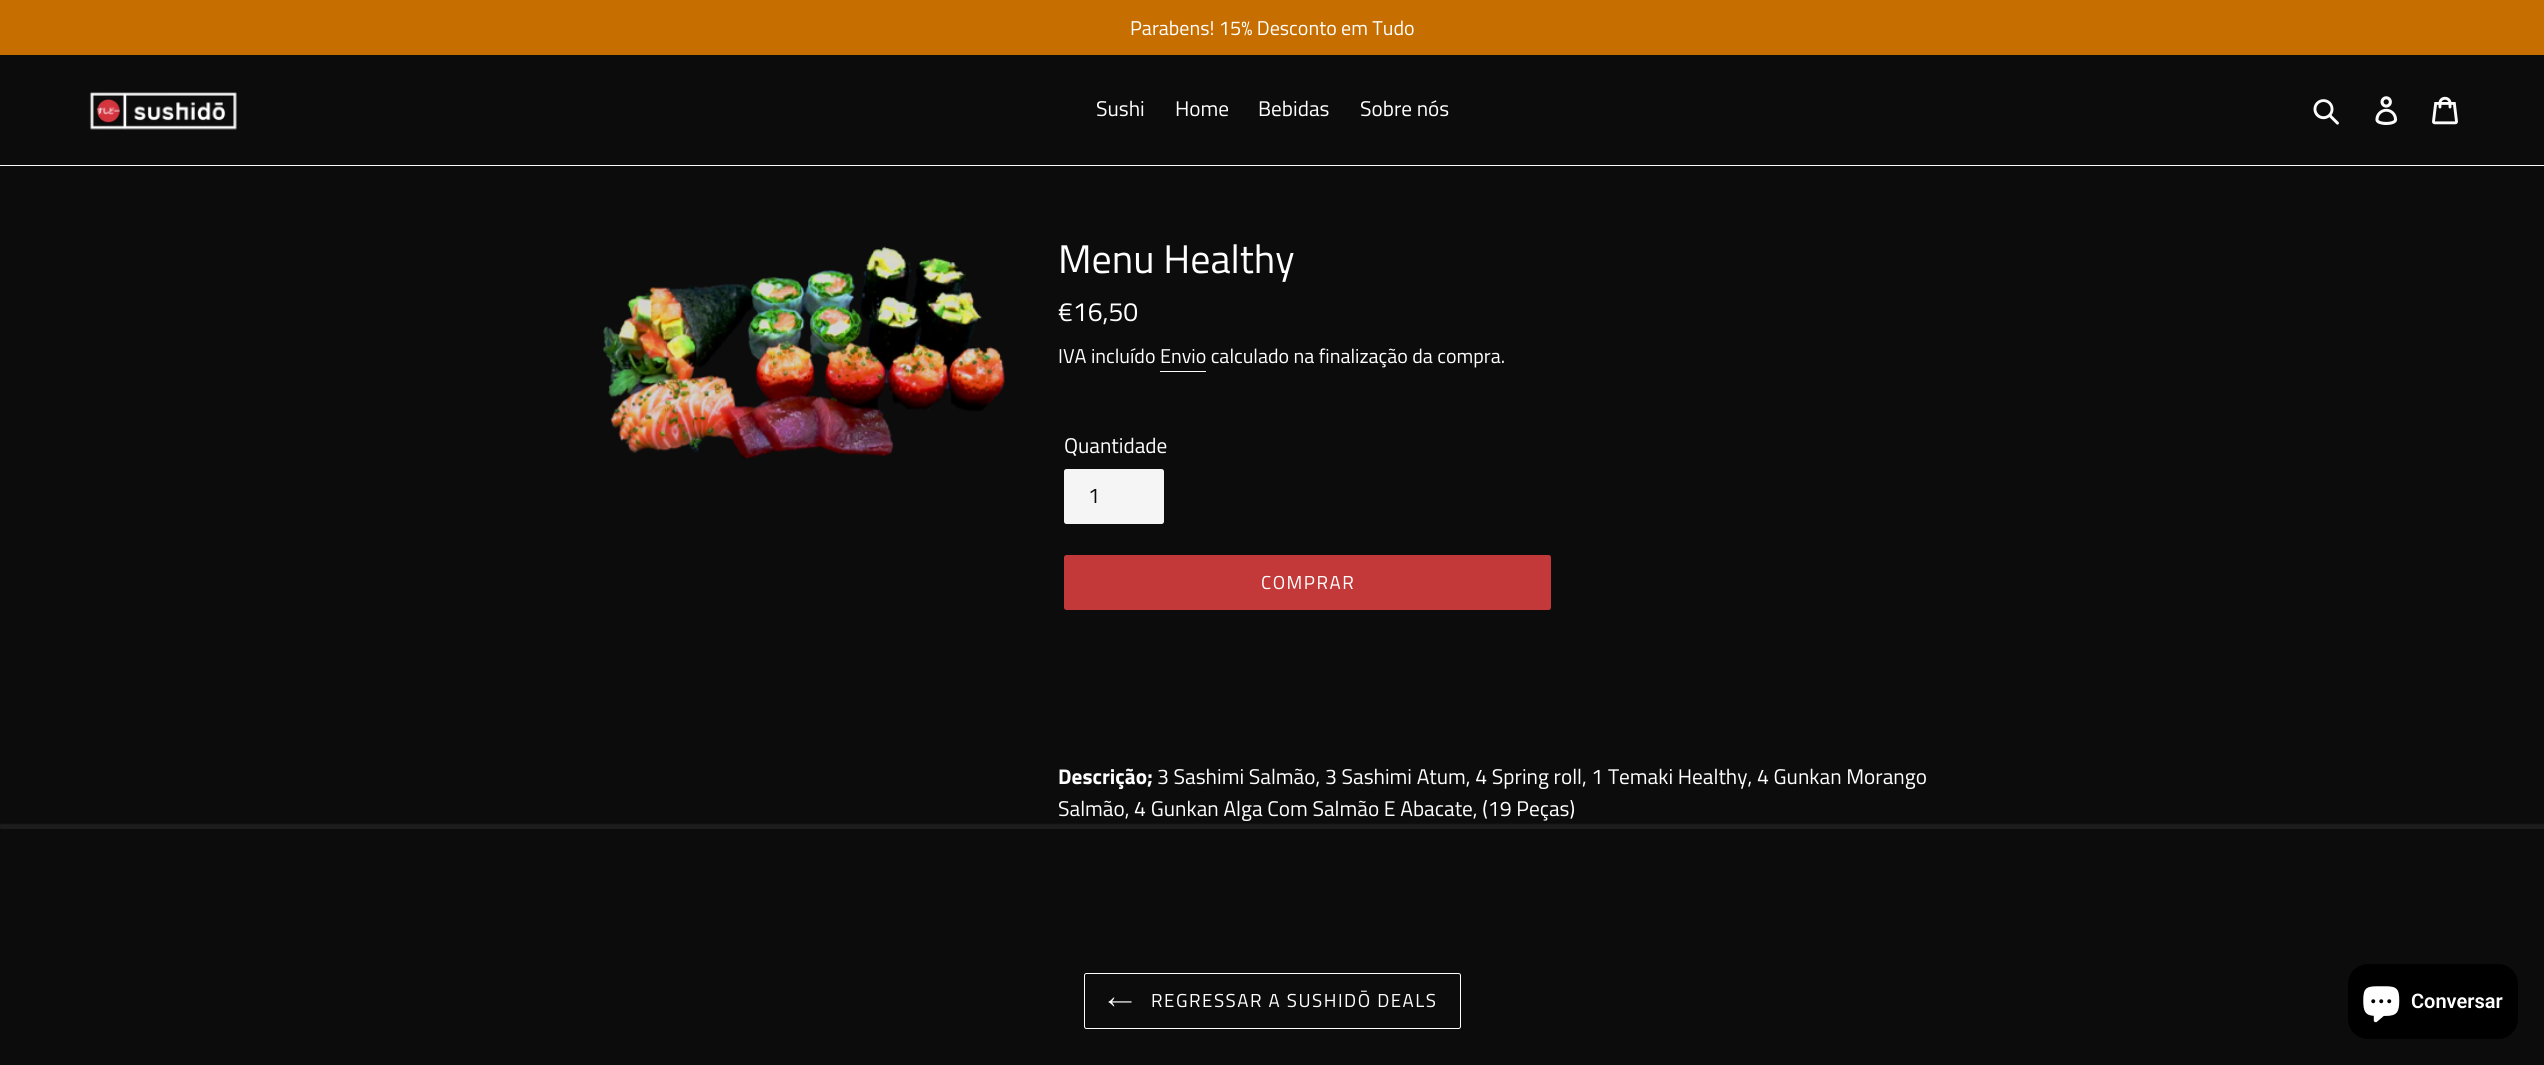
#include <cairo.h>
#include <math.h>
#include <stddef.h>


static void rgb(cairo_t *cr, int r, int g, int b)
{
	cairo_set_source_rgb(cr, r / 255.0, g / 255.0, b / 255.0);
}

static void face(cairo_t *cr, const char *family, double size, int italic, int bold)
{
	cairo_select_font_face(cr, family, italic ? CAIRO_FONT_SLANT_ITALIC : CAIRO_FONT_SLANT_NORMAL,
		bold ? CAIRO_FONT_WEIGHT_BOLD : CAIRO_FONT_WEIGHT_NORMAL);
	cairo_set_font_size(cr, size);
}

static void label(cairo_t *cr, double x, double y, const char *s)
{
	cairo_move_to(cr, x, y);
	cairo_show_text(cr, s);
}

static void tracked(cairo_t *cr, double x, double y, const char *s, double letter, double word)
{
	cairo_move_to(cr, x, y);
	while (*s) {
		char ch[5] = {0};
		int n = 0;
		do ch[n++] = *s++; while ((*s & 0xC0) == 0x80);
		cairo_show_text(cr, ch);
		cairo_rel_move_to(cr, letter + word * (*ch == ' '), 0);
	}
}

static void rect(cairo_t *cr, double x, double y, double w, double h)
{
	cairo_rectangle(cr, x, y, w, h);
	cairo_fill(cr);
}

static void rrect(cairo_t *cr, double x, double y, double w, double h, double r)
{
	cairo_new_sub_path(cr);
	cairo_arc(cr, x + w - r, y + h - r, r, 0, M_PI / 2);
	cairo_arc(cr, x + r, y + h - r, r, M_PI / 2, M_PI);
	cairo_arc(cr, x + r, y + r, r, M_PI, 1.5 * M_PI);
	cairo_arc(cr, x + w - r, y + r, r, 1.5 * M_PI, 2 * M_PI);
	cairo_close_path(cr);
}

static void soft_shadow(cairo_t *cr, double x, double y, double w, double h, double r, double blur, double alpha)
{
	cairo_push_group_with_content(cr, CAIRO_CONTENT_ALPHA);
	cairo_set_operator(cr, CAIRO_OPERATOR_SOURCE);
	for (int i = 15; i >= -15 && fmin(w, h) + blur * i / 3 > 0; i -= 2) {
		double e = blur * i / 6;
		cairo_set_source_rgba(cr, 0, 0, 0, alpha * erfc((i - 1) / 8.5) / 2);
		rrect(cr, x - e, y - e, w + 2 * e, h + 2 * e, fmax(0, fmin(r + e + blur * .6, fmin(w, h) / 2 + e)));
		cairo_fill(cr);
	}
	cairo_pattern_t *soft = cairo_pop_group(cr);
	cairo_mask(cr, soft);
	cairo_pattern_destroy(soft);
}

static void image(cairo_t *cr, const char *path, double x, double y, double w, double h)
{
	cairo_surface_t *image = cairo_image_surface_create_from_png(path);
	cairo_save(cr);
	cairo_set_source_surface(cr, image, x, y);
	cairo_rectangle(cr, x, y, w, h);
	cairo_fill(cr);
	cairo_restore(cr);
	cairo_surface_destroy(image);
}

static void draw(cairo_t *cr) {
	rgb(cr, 12, 12, 12);
	cairo_paint(cr);
	rgb(cr, 199, 110, 0);
	rect(cr, 0, 0, 2544, 55);
	face(cr, "Titillium Web", 20, 0, 0);
	rgb(cr, 255, 255, 255);
	label(cr, 1130, 35, "Parabens! 15% Desconto em Tudo");
	rgb(cr, 252, 252, 252);
	rect(cr, 0, 165, 2544, 1);
	image(cr, "image0.png", 89, 92, 148, 38);
	face(cr, "Titillium Web", 21.25, 0, 0);
	rgb(cr, 255, 255, 255);
	label(cr, 1096, 116, "Sushi");
	label(cr, 1175, 116, "Home");
	label(cr, 1258, 116, "Bebidas");
	label(cr, 1360, 116, "Sobre nós");
	image(cr, "image1.png", 2313, 99, 26, 26);
	image(cr, "image2.png", 2375, 96, 23, 29);
	image(cr, "image3.png", 2432, 96, 26, 29);
	image(cr, "image4.png", 603, 246, 402, 213);
	face(cr, "Titillium Web", 40, 0, 0);
	label(cr, 1058, 273, "Menu Healthy");
	face(cr, "Titillium Web", 26.5, 0, 0);
	label(cr, 1058, 321, "€16,50");
	face(cr, "Titillium Web", 20, 0, 0);
	label(cr, 1058, 363, "IVA incluído Envio calculado na finalização da compra.");
	rect(cr, 1160, 371, 46, 1);
	face(cr, "Titillium Web", 21.25, 0, 0);
	label(cr, 1064, 453, "Quantidade");
	rgb(cr, 245, 245, 245);
	rrect(cr, 1064, 469, 100, 55, 2.5);
	cairo_fill(cr);
	rgb(cr, 12, 12, 12);
	label(cr, 1088, 503, "1");
	rgb(cr, 195, 57, 57);
	rrect(cr, 1064, 555, 487, 55, 2.5);
	cairo_fill(cr);
	face(cr, "Titillium Web", 18.75, 0, 0);
	rgb(cr, 255, 255, 255);
	tracked(cr, 1261, 589, "COMPRAR", 1.5, 0);
	face(cr, "Titillium Web", 21.25, 0, 1);
	label(cr, 1058, 784, "Descrição;");
	face(cr, "Titillium Web", 21.25, 0, 0);
	label(cr, 1157, 784, "3 Sashimi Salmão, 3 Sashimi Atum, 4 Spring roll, 1 Temaki Healthy, 4 Gunkan Morango");
	label(cr, 1058, 816, "Salmão, 4 Gunkan Alga Com Salmão E Abacate, (19 Peças)");
	rgb(cr, 28, 28, 28);
	cairo_new_path(cr);
	cairo_move_to(cr, 0, 827);
	cairo_curve_to(cr, 0, 828, 0, 829, 2, 829);
	cairo_line_to(cr, 2544, 829);
	cairo_curve_to(cr, 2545, 829, 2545, 828, 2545, 827);
	cairo_line_to(cr, 2544, 828);
	cairo_line_to(cr, 1, 828);
	cairo_close_path(cr);
	cairo_fill(cr);
	rgb(cr, 28, 28, 28);
	soft_shadow(cr, 0, 824, 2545, 3, 1.5, 0.5, 1);
	rgb(cr, 28, 28, 28);
	rrect(cr, 0, 825, 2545, 3, 1.5);
	cairo_fill(cr);
	rrect(cr, 1084.5, 973.5, 376, 55, 2);
	rgb(cr, 255, 255, 255);
	cairo_set_line_width(cr, 1);
	cairo_stroke(cr);
	image(cr, "image5.png", 1108, 997, 24, 10);
	face(cr, "Titillium Web", 18.75, 0, 0);
	tracked(cr, 1151, 1007, "REGRESSAR A SUSHIDŌ DEALS", 1.5, 0);
	rgb(cr, 0, 0, 0);
	rrect(cr, 2348, 964, 170, 75, 20);
	cairo_fill(cr);
	image(cr, "image6.png", 2363, 986, 37, 37);
	face(cr, "Roboto SemiBold", 20, 0, 0);
	rgb(cr, 255, 255, 255);
	label(cr, 2411, 1008, "Conversar");
}

int main(void) {
	cairo_surface_t *surface = cairo_image_surface_create(CAIRO_FORMAT_RGB24, 2544, 1065);
	cairo_t *cr = cairo_create(surface);
	cairo_font_options_t *options = cairo_font_options_create();
	cairo_font_options_set_hint_metrics(options, CAIRO_HINT_METRICS_OFF);
	cairo_font_options_set_hint_style(options, CAIRO_HINT_STYLE_NONE);
	cairo_set_font_options(cr, options);
	cairo_set_miter_limit(cr, 4);
	draw(cr);
	cairo_surface_write_to_png(surface, "render.png");
	cairo_font_options_destroy(options);
	cairo_destroy(cr);
	cairo_surface_destroy(surface);
	return 0;
}
